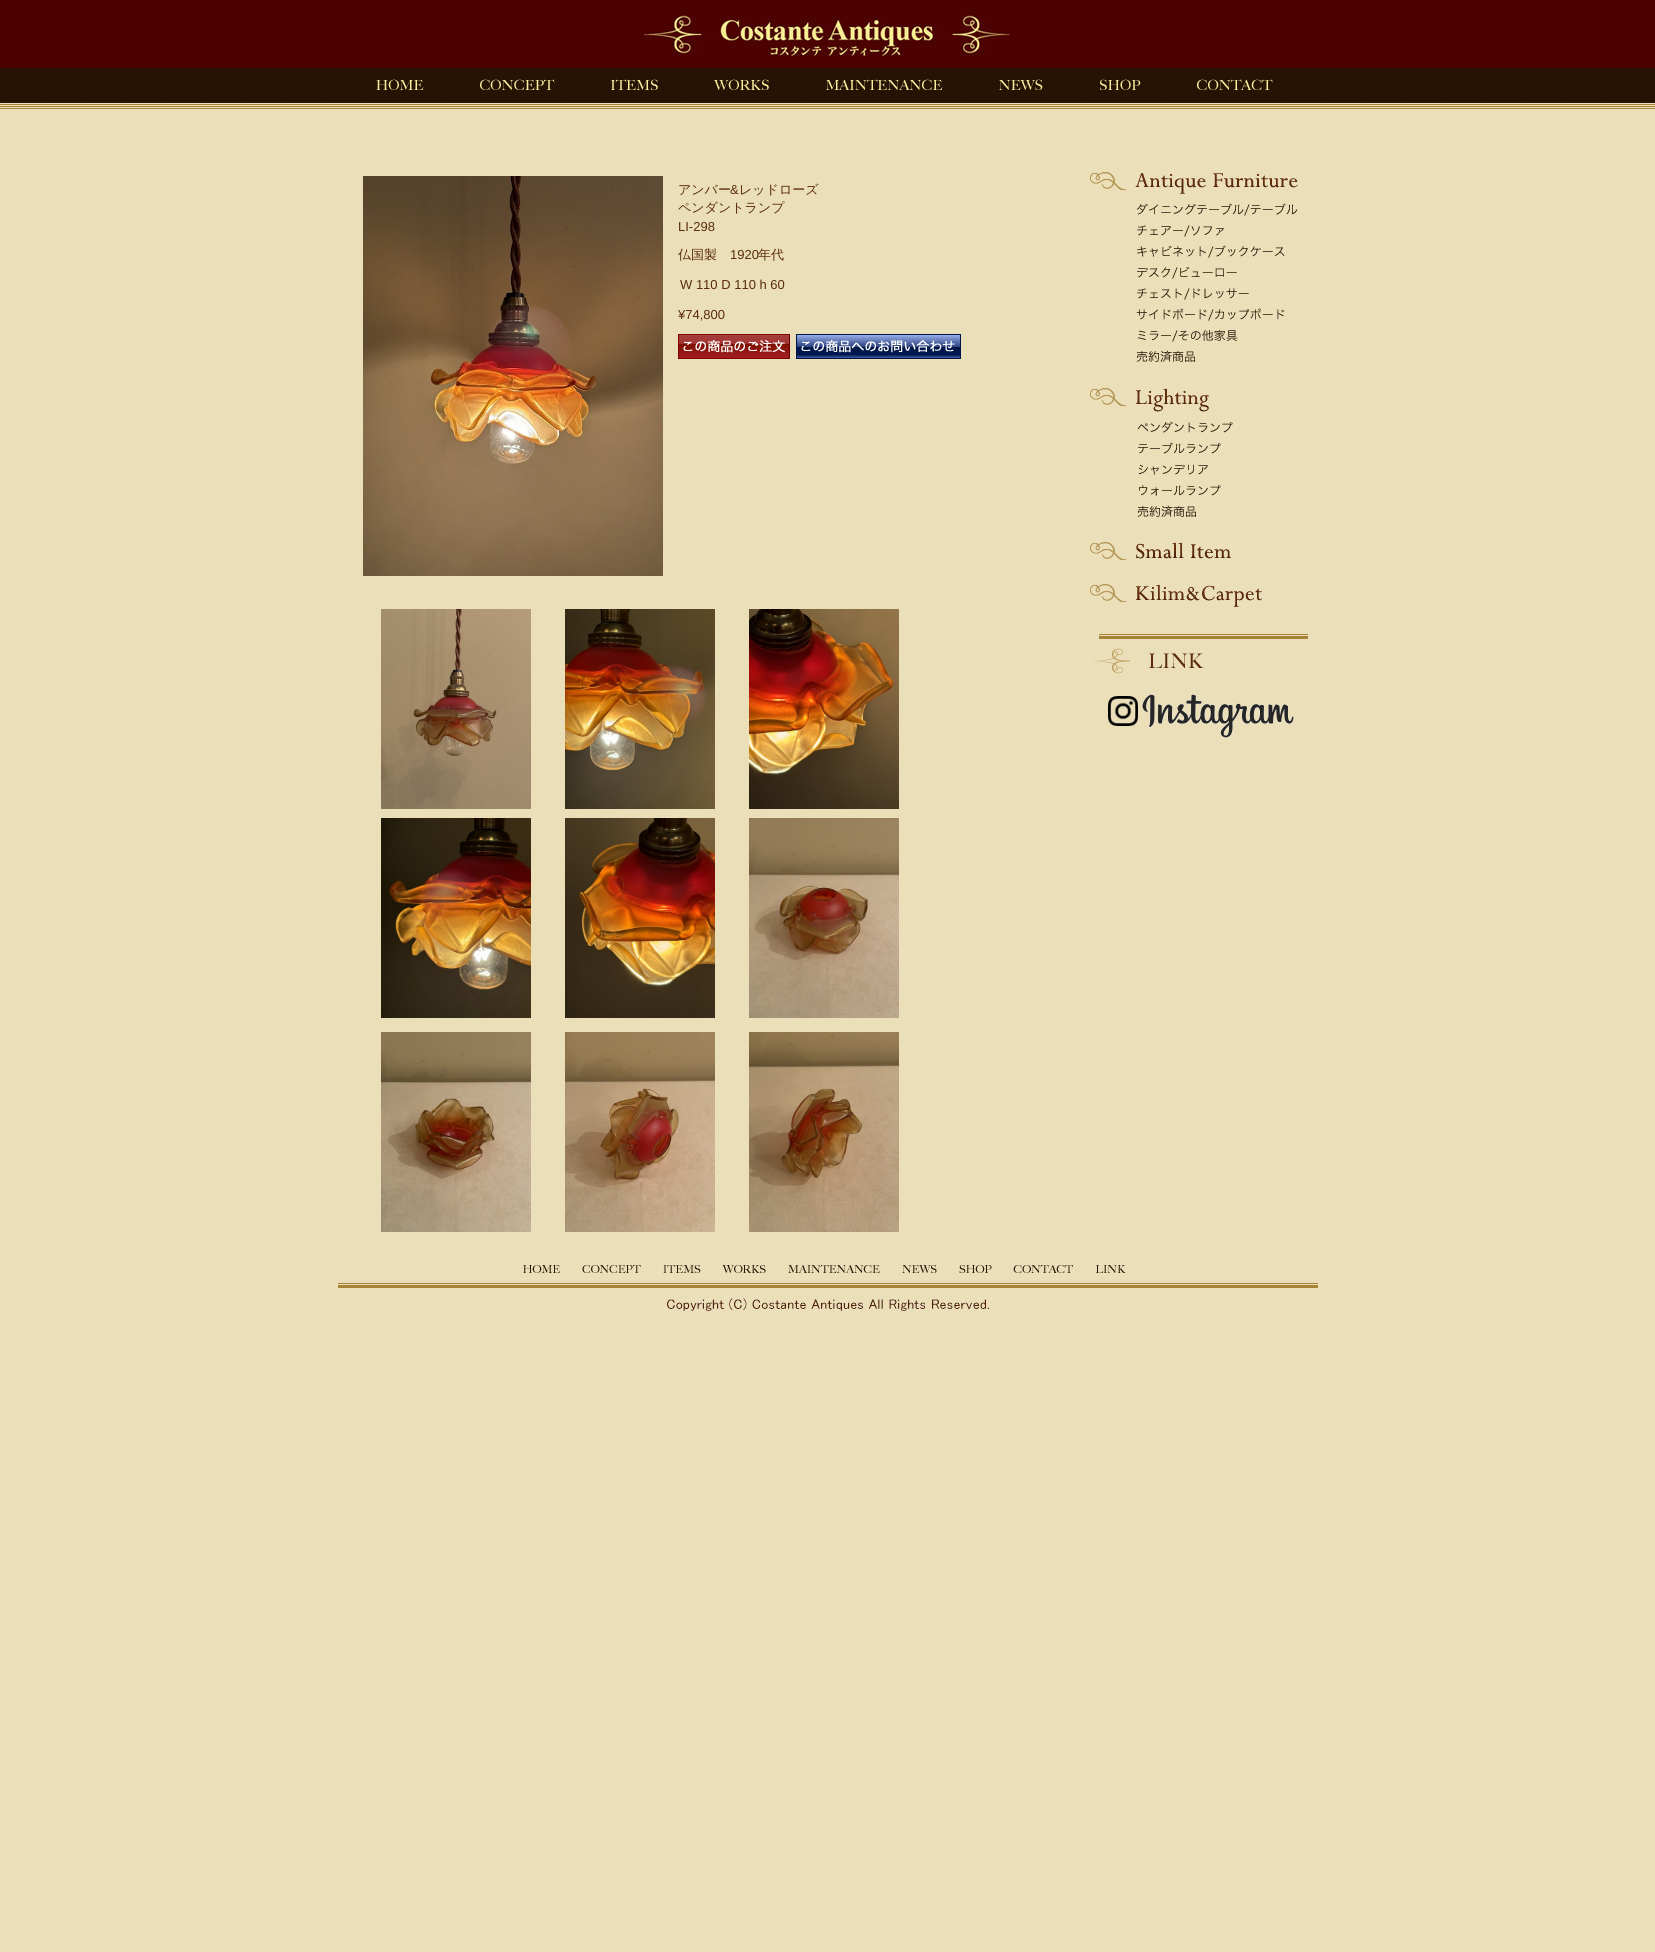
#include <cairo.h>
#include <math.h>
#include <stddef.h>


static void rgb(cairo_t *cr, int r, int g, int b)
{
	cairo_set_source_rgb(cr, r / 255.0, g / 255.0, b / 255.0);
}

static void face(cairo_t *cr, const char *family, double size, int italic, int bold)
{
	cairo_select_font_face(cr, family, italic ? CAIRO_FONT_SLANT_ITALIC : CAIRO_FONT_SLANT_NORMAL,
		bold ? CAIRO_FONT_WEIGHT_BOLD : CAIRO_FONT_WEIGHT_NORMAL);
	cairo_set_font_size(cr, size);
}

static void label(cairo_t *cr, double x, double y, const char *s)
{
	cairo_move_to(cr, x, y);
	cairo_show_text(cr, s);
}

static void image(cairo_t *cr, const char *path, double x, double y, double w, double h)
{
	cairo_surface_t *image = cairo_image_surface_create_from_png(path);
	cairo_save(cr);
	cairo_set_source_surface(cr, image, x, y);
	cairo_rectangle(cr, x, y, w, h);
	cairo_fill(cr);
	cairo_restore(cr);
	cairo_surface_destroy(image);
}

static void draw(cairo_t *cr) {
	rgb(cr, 235, 223, 185);
	cairo_paint(cr);
	image(cr, "image0.png", 0, 0, 1655, 109);
	image(cr, "image1.png", 642, 13, 368, 43);
	image(cr, "image2.png", 376, 79, 48, 11);
	image(cr, "image3.png", 480, 79, 75, 11);
	image(cr, "image4.png", 611, 79, 47, 11);
	image(cr, "image5.png", 713, 79, 56, 11);
	image(cr, "image6.png", 826, 79, 117, 11);
	image(cr, "image7.png", 999, 79, 44, 11);
	image(cr, "image8.png", 1100, 79, 41, 11);
	image(cr, "image9.png", 1197, 79, 76, 11);
	image(cr, "image10.png", 363, 176, 300, 400);
	face(cr, "WenQuanYi Zen Hei Medium", 13, 0, 0);
	rgb(cr, 90, 44, 10);
	label(cr, 678, 194, "アンバー");
	face(cr, "Liberation Sans", 13, 0, 0);
	label(cr, 730, 194, "&");
	face(cr, "WenQuanYi Zen Hei Medium", 13, 0, 0);
	label(cr, 739, 194, "レッドローズ");
	label(cr, 678, 212, "ペンダントランプ");
	face(cr, "Liberation Sans", 13, 0, 0);
	label(cr, 678, 231, "LI-298");
	face(cr, "WenQuanYi Zen Hei Medium", 13, 0, 0);
	label(cr, 678, 259, "仏国製");
	face(cr, "Liberation Sans", 13, 0, 0);
	label(cr, 730, 259, "1920");
	face(cr, "WenQuanYi Zen Hei Medium", 13, 0, 0);
	label(cr, 758, 259, "年代");
	face(cr, "Liberation Sans", 13, 0, 0);
	label(cr, 680, 289, "W 110 D 110 h 60");
	label(cr, 678, 319, "¥74,800");
	image(cr, "image11.png", 678, 334, 112, 25);
	image(cr, "image12.png", 796, 334, 165, 25);
	image(cr, "image13.png", 381, 609, 150, 200);
	image(cr, "image14.png", 565, 609, 150, 200);
	image(cr, "image15.png", 749, 609, 150, 200);
	image(cr, "image16.png", 381, 818, 150, 200);
	image(cr, "image17.png", 565, 818, 150, 200);
	image(cr, "image18.png", 749, 818, 150, 200);
	image(cr, "image19.png", 381, 1032, 150, 200);
	image(cr, "image20.png", 565, 1032, 150, 200);
	image(cr, "image21.png", 749, 1032, 150, 200);
	image(cr, "image22.png", 1088, 167, 216, 440);
	image(cr, "image23.png", 1093, 632, 216, 47);
	image(cr, "image24.png", 1108, 696, 30, 30);
	image(cr, "image25.png", 1142, 694, 152, 44);
	image(cr, "image26.png", 338, 1263, 980, 48);
}

int main(void) {
	cairo_surface_t *surface = cairo_image_surface_create(CAIRO_FORMAT_RGB24, 1655, 1952);
	cairo_t *cr = cairo_create(surface);
	cairo_font_options_t *options = cairo_font_options_create();
	cairo_font_options_set_hint_metrics(options, CAIRO_HINT_METRICS_OFF);
	cairo_font_options_set_hint_style(options, CAIRO_HINT_STYLE_NONE);
	cairo_set_font_options(cr, options);
	cairo_set_miter_limit(cr, 4);
	draw(cr);
	cairo_surface_write_to_png(surface, "render.png");
	cairo_font_options_destroy(options);
	cairo_destroy(cr);
	cairo_surface_destroy(surface);
	return 0;
}
